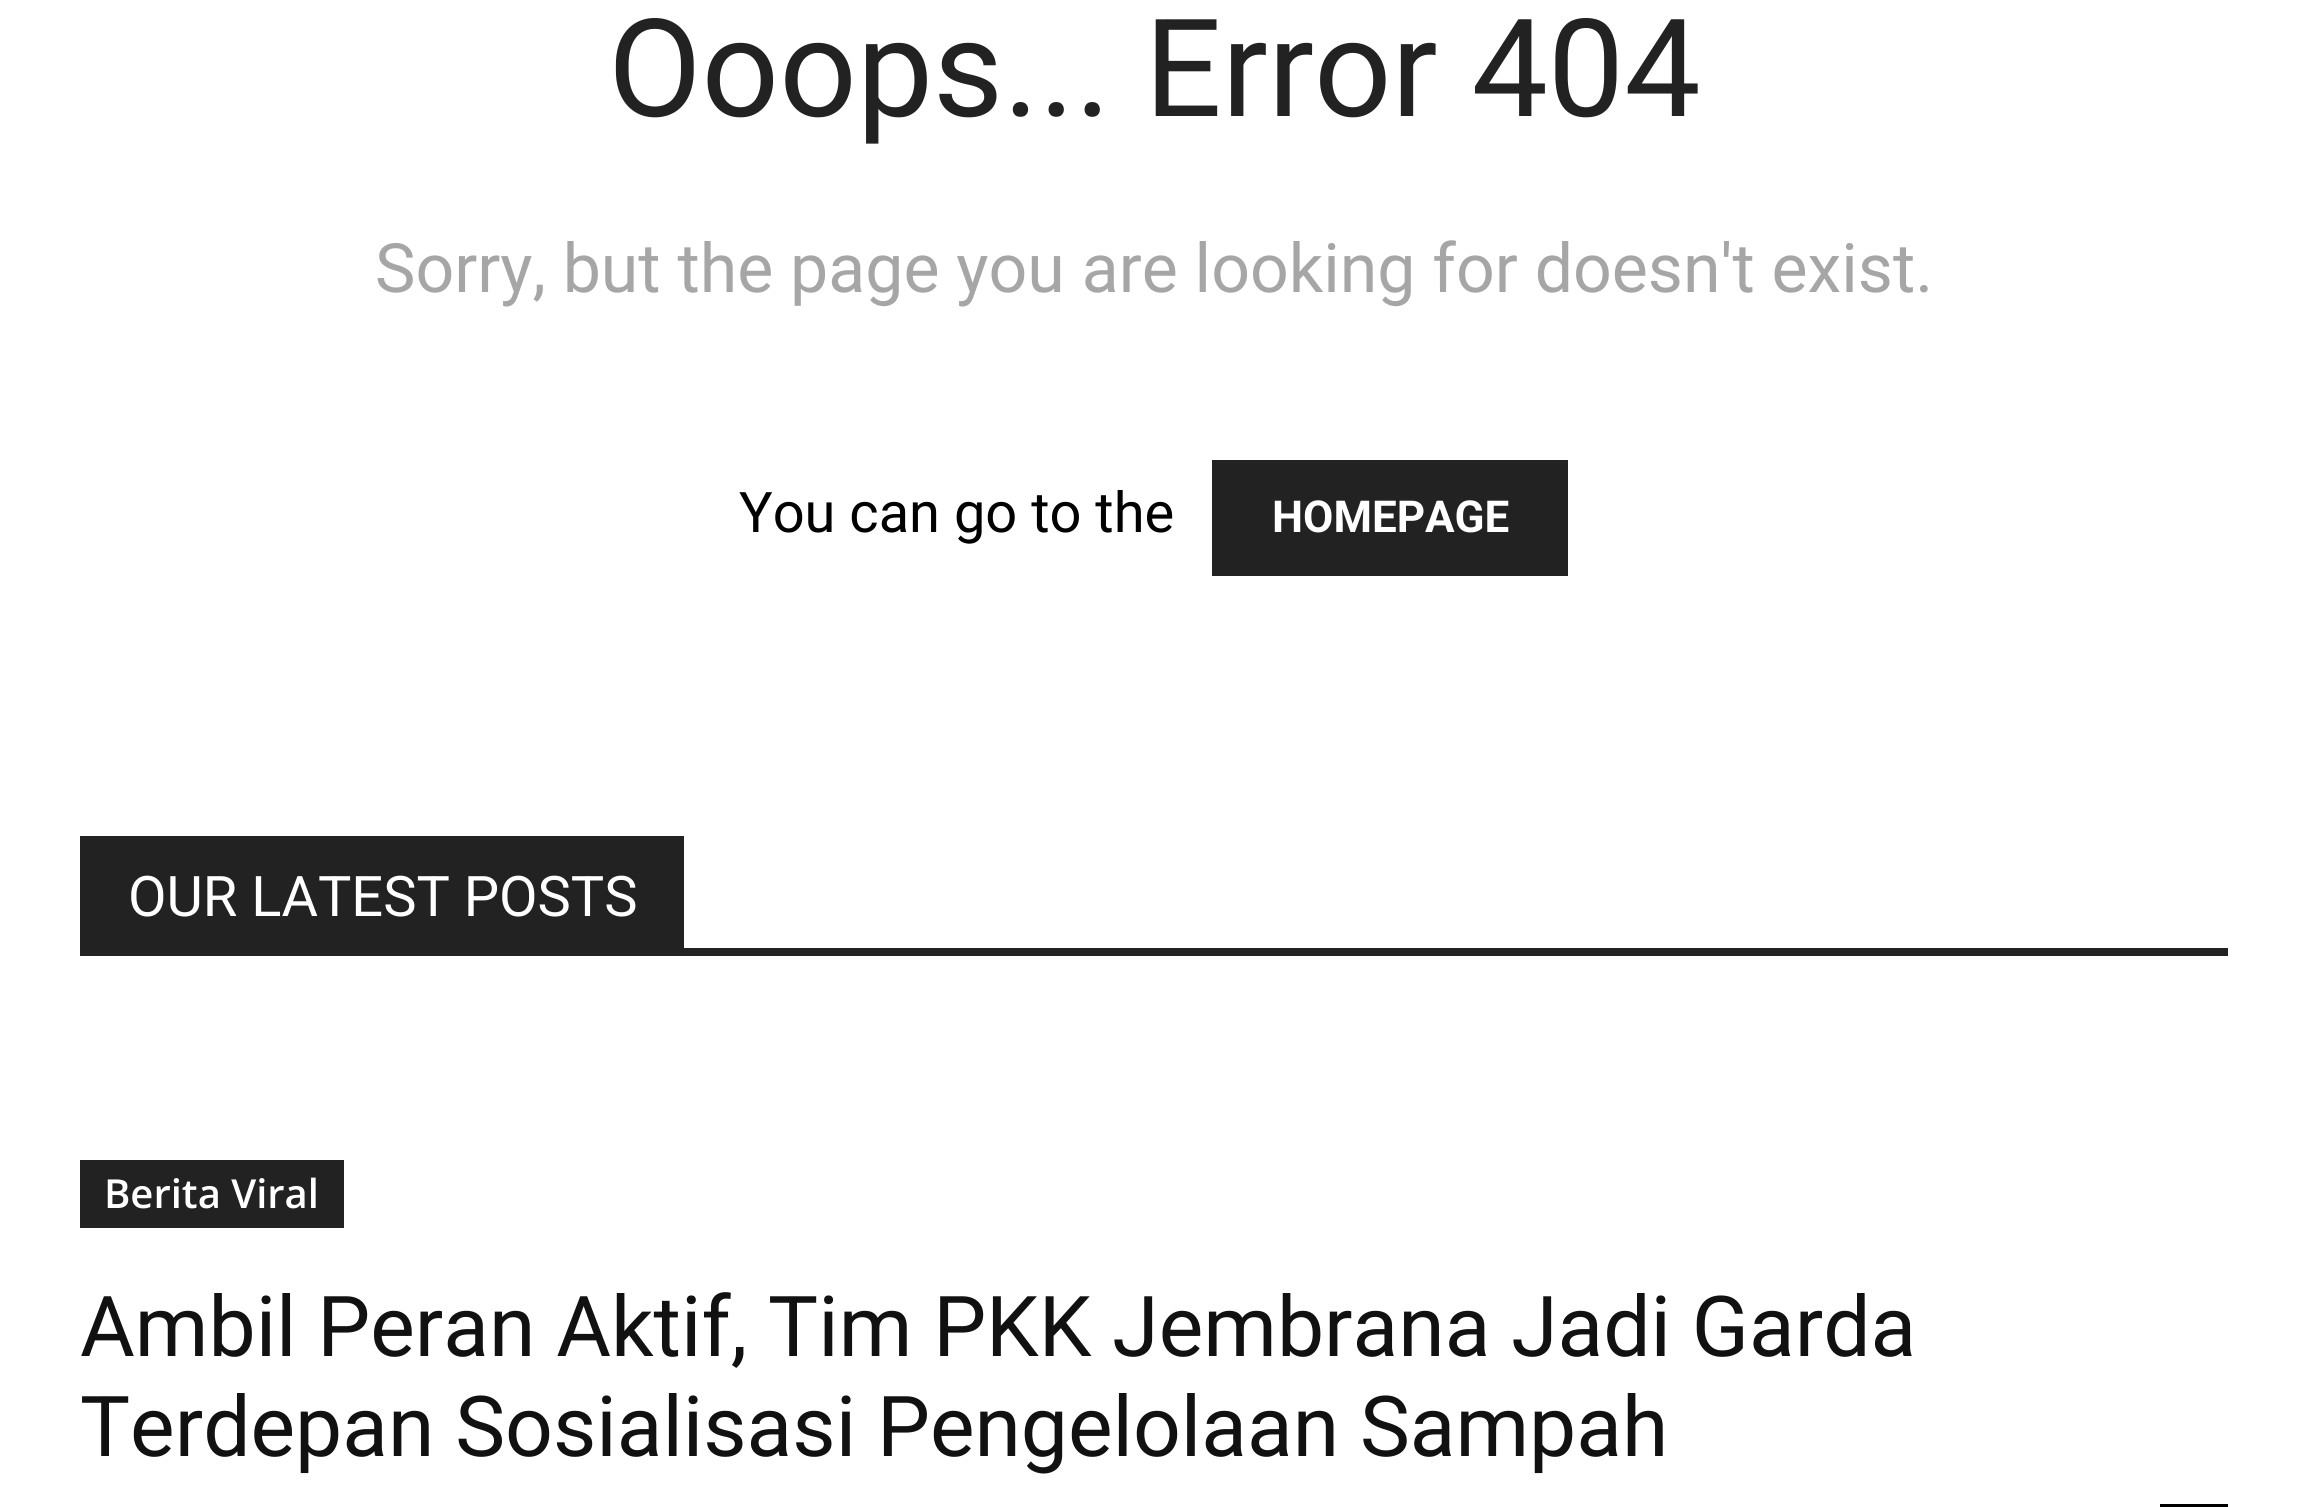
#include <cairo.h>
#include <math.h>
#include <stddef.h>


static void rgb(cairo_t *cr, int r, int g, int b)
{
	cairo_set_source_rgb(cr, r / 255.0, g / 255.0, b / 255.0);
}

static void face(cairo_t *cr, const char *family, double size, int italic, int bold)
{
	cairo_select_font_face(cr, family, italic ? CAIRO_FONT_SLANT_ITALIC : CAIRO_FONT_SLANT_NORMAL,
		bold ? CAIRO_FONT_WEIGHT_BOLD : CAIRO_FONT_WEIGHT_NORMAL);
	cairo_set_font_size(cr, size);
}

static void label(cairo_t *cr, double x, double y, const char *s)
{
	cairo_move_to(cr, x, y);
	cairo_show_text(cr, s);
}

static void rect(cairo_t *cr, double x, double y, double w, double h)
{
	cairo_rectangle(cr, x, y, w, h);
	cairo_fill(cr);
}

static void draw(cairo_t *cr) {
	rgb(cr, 255, 255, 255);
	cairo_paint(cr);
	face(cr, "Roboto", 136, 0, 0);
	rgb(cr, 34, 34, 34);
	label(cr, 608, 116, "Ooops... Error 404");
	face(cr, "Roboto", 68, 0, 0);
	rgb(cr, 166, 166, 166);
	label(cr, 375, 292, "Sorry, but the page you are looking for doesn't exist.");
	face(cr, "Roboto", 56, 0, 0);
	rgb(cr, 0, 0, 0);
	label(cr, 739, 532, "You can go to the");
	rgb(cr, 34, 34, 34);
	rect(cr, 1212, 460, 356, 116);
	face(cr, "Roboto", 44, 0, 1);
	rgb(cr, 255, 255, 255);
	label(cr, 1272, 532, "HOMEPAGE");
	rgb(cr, 34, 34, 34);
	rect(cr, 80, 948, 2148, 8);
	rect(cr, 80, 836, 604, 112);
	face(cr, "Roboto", 56, 0, 0);
	rgb(cr, 255, 255, 255);
	label(cr, 128, 916, "OUR LATEST POSTS");
	rgb(cr, 34, 34, 34);
	rect(cr, 80, 1160, 264, 68);
	face(cr, "Open Sans SemiBold", 40, 0, 0);
	rgb(cr, 255, 255, 255);
	label(cr, 104, 1208, "Berita Viral");
	face(cr, "Roboto", 84, 0, 0);
	rgb(cr, 17, 17, 17);
	label(cr, 80, 1356, "Ambil Peran Aktif, Tim PKK Jembrana Jadi Garda");
	label(cr, 80, 1456, "Terdepan Sosialisasi Pengelolaan Sampah");
	rgb(cr, 0, 0, 0);
	rect(cr, 2160, 1504, 68, 3);
}

int main(void) {
	cairo_surface_t *surface = cairo_image_surface_create(CAIRO_FORMAT_RGB24, 2305, 1507);
	cairo_t *cr = cairo_create(surface);
	cairo_font_options_t *options = cairo_font_options_create();
	cairo_font_options_set_hint_metrics(options, CAIRO_HINT_METRICS_OFF);
	cairo_font_options_set_hint_style(options, CAIRO_HINT_STYLE_NONE);
	cairo_set_font_options(cr, options);
	cairo_set_miter_limit(cr, 4);
	draw(cr);
	cairo_surface_write_to_png(surface, "render.png");
	cairo_font_options_destroy(options);
	cairo_destroy(cr);
	cairo_surface_destroy(surface);
	return 0;
}
